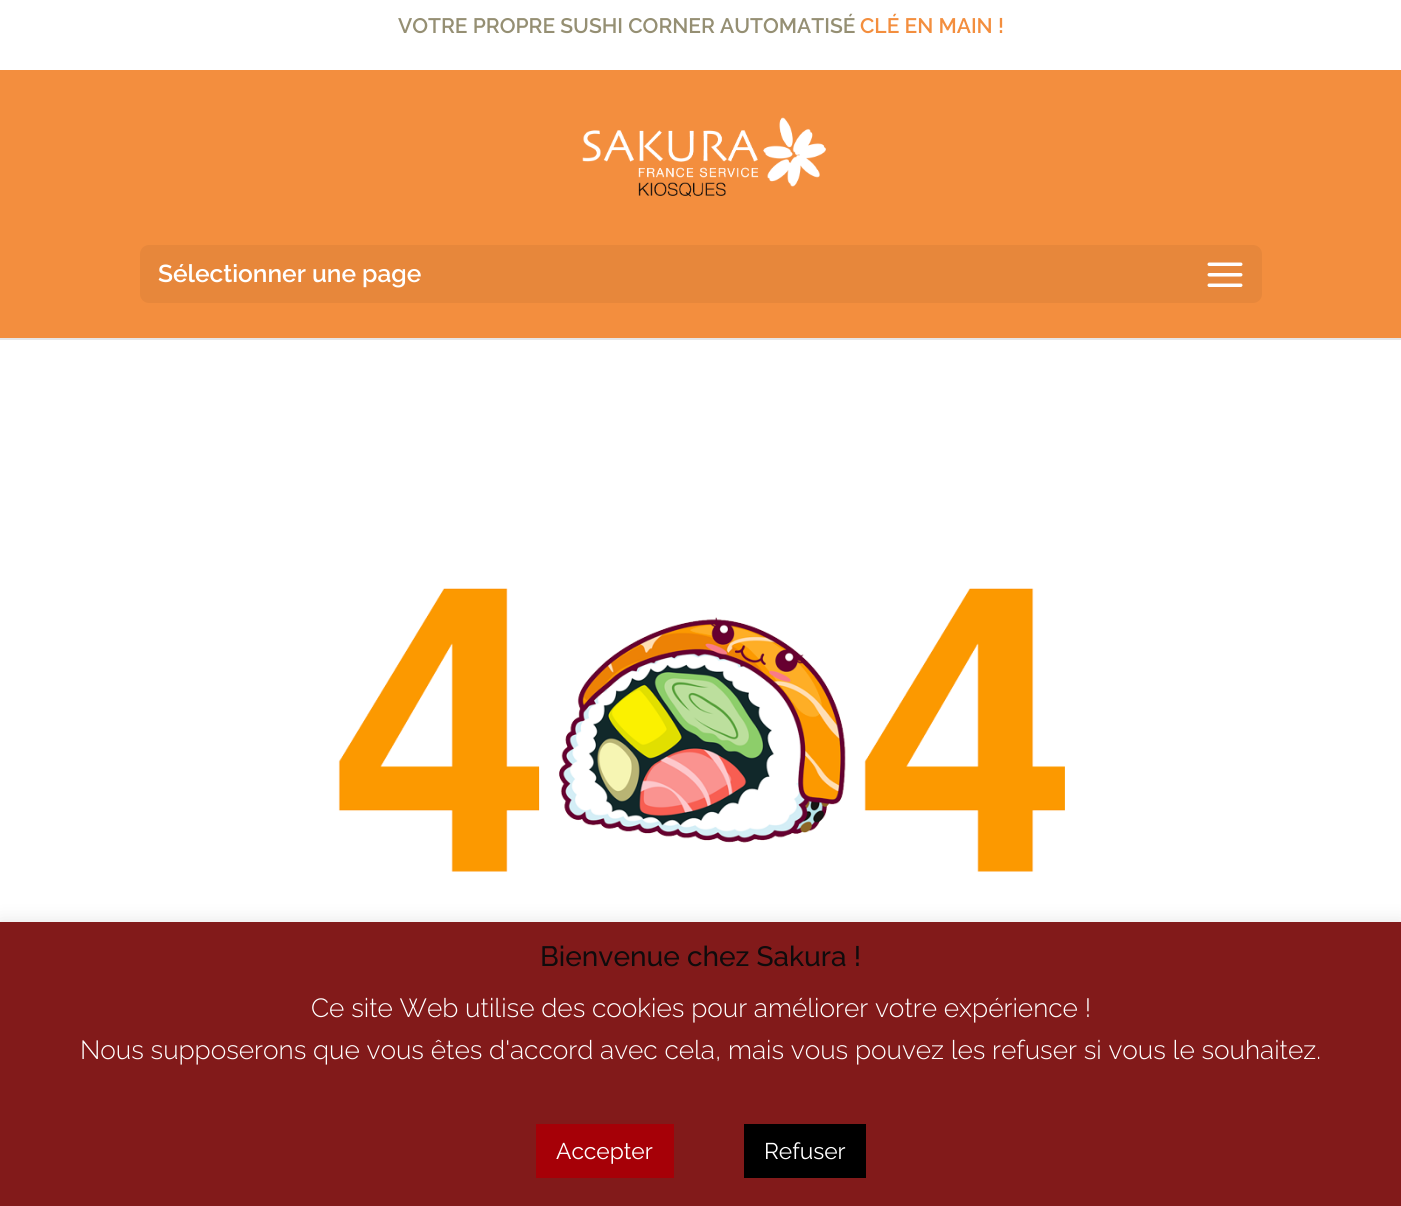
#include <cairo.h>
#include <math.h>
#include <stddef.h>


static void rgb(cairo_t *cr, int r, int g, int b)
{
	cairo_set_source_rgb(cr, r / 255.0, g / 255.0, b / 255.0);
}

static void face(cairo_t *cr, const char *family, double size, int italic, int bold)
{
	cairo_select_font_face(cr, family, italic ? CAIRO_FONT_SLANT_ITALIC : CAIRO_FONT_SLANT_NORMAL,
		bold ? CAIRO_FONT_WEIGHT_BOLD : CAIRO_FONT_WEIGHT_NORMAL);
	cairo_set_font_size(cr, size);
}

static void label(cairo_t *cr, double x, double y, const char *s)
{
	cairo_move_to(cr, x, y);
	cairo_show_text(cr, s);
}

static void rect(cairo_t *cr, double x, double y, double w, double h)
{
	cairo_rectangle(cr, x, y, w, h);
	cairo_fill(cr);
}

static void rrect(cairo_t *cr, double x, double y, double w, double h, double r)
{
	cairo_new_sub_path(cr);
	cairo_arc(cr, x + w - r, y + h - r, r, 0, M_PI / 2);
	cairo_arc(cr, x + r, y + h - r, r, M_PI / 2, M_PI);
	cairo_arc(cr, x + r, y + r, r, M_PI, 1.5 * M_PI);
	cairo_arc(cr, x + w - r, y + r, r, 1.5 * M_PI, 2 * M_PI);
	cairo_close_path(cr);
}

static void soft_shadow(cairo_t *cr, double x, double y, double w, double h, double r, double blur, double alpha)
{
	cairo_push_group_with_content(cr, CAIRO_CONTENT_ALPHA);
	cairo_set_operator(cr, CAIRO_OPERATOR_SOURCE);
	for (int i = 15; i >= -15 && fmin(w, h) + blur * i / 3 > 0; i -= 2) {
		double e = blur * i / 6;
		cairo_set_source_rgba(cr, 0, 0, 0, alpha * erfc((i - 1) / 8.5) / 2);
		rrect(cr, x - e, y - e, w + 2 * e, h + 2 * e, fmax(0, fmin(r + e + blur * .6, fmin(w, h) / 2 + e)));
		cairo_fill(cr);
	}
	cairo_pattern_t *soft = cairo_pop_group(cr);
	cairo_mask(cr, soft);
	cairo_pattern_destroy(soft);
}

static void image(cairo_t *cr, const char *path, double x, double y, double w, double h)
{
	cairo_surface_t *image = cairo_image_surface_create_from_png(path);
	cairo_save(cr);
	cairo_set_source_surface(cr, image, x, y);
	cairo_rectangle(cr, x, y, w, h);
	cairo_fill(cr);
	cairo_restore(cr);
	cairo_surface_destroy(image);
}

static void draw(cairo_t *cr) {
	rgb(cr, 255, 255, 255);
	cairo_paint(cr);
	face(cr, "Raleway SemiBold", 21, 0, 0);
	rgb(cr, 149, 143, 115);
	label(cr, 398, 33, "VOTRE PROPRE SUSHI CORNER AUTOMATISÉ");
	rgb(cr, 243, 142, 62);
	label(cr, 860, 33, "CLÉ EN MAIN !");
	rgb(cr, 230, 230, 230);
	cairo_new_path(cr);
	cairo_move_to(cr, 0, 338);
	cairo_line_to(cr, 0, 340);
	cairo_line_to(cr, 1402, 340);
	cairo_line_to(cr, 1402, 72);
	cairo_line_to(cr, 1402, 338);
	cairo_close_path(cr);
	cairo_fill(cr);
	rgb(cr, 243, 142, 62);
	rect(cr, 0, 70, 1401, 268);
	image(cr, "image0.png", 582, 117, 244, 80);
	rgb(cr, 231, 135, 59);
	rrect(cr, 140, 245, 1122, 58, 9);
	cairo_fill(cr);
	face(cr, "Raleway SemiBold", 24.5, 0, 0);
	rgb(cr, 255, 255, 255);
	label(cr, 158, 282, "Sélectionner une page");
	image(cr, "image1.png", 1207, 262, 36, 25);
	image(cr, "image2.png", 338, 588, 727, 284);
	rgb(cr, 172, 171, 171);
	soft_shadow(cr, 0, 921, 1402, 285, 0, 9, 0.3);
	rgb(cr, 130, 26, 26);
	rect(cr, 0, 922, 1401, 284);
	face(cr, "Raleway Medium", 28, 0, 0);
	rgb(cr, 16, 11, 12);
	label(cr, 540, 966, "Bienvenue chez Sakura !");
	face(cr, "Raleway Light", 26.25, 0, 0);
	rgb(cr, 255, 255, 255);
	label(cr, 311, 1017, "Ce site Web utilise des cookies pour améliorer votre expérience !");
	label(cr, 80, 1059, "Nous supposerons que vous êtes d'accord avec cela, mais vous pouvez les refuser si vous le souhaitez.");
	rgb(cr, 166, 0, 7);
	rect(cr, 536, 1124, 138, 54);
	face(cr, "Raleway", 22.75, 0, 0);
	rgb(cr, 255, 255, 255);
	label(cr, 556, 1159, "Accepter");
	rgb(cr, 0, 0, 0);
	rect(cr, 744, 1124, 122, 54);
	rgb(cr, 255, 255, 255);
	label(cr, 764, 1159, "Refuser");
}

int main(void) {
	cairo_surface_t *surface = cairo_image_surface_create(CAIRO_FORMAT_RGB24, 1401, 1206);
	cairo_t *cr = cairo_create(surface);
	cairo_font_options_t *options = cairo_font_options_create();
	cairo_font_options_set_hint_metrics(options, CAIRO_HINT_METRICS_OFF);
	cairo_font_options_set_hint_style(options, CAIRO_HINT_STYLE_NONE);
	cairo_set_font_options(cr, options);
	cairo_set_miter_limit(cr, 4);
	draw(cr);
	cairo_surface_write_to_png(surface, "render.png");
	cairo_font_options_destroy(options);
	cairo_destroy(cr);
	cairo_surface_destroy(surface);
	return 0;
}
